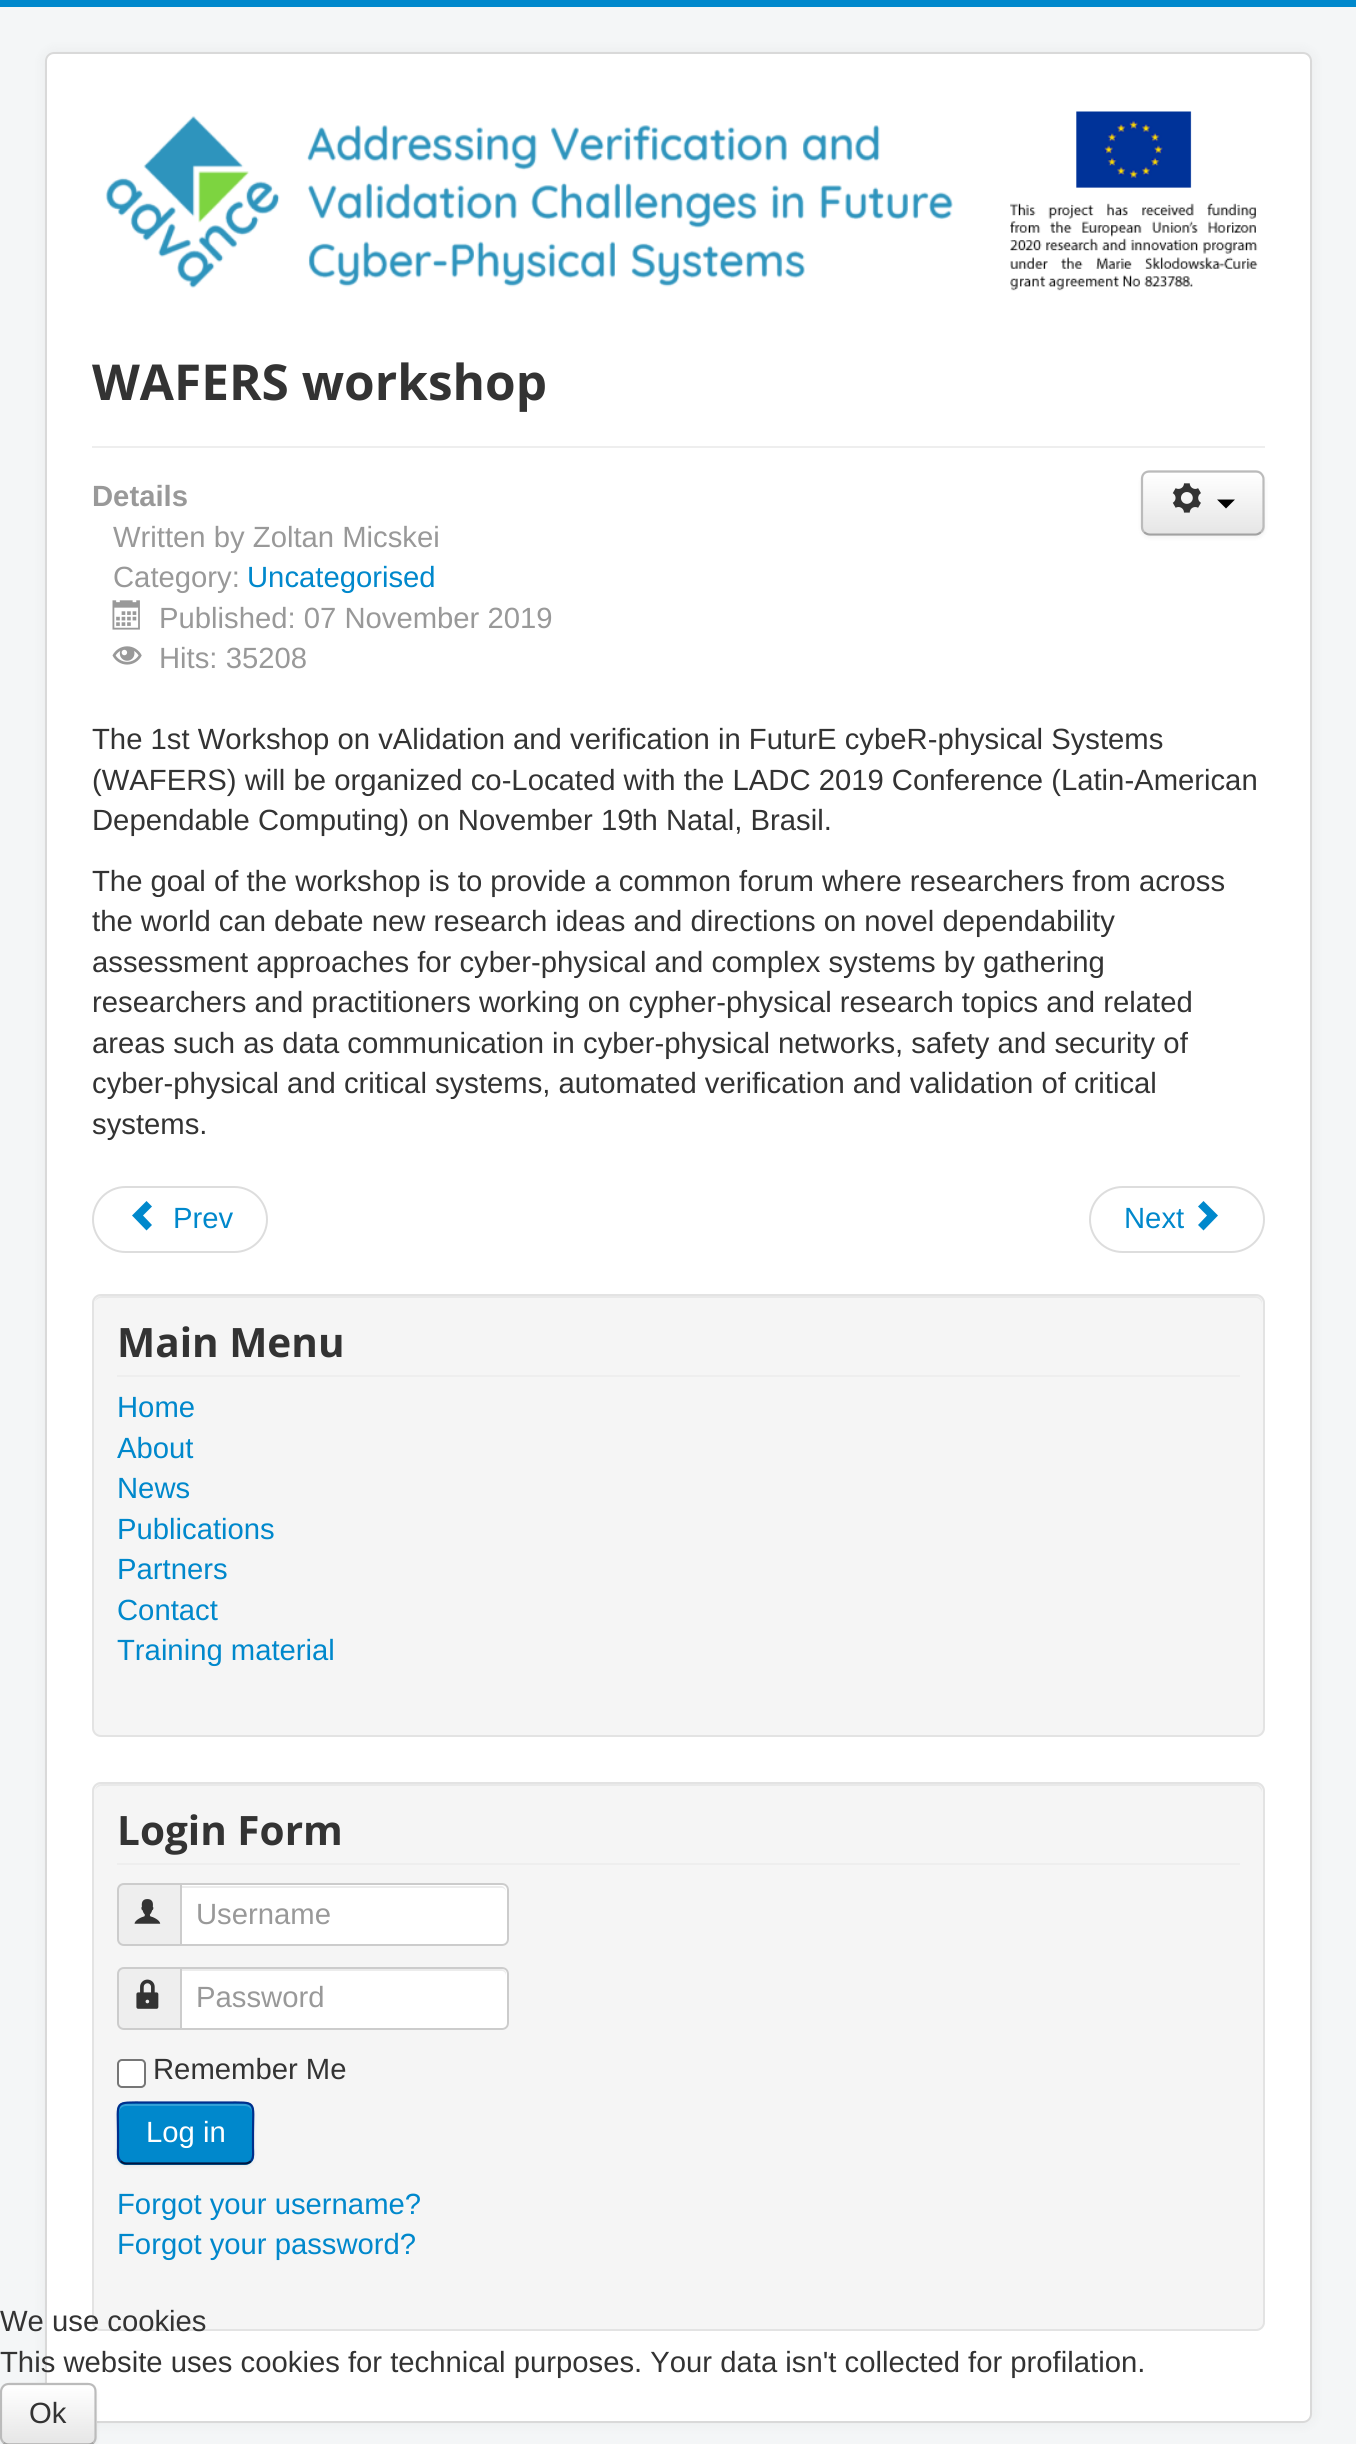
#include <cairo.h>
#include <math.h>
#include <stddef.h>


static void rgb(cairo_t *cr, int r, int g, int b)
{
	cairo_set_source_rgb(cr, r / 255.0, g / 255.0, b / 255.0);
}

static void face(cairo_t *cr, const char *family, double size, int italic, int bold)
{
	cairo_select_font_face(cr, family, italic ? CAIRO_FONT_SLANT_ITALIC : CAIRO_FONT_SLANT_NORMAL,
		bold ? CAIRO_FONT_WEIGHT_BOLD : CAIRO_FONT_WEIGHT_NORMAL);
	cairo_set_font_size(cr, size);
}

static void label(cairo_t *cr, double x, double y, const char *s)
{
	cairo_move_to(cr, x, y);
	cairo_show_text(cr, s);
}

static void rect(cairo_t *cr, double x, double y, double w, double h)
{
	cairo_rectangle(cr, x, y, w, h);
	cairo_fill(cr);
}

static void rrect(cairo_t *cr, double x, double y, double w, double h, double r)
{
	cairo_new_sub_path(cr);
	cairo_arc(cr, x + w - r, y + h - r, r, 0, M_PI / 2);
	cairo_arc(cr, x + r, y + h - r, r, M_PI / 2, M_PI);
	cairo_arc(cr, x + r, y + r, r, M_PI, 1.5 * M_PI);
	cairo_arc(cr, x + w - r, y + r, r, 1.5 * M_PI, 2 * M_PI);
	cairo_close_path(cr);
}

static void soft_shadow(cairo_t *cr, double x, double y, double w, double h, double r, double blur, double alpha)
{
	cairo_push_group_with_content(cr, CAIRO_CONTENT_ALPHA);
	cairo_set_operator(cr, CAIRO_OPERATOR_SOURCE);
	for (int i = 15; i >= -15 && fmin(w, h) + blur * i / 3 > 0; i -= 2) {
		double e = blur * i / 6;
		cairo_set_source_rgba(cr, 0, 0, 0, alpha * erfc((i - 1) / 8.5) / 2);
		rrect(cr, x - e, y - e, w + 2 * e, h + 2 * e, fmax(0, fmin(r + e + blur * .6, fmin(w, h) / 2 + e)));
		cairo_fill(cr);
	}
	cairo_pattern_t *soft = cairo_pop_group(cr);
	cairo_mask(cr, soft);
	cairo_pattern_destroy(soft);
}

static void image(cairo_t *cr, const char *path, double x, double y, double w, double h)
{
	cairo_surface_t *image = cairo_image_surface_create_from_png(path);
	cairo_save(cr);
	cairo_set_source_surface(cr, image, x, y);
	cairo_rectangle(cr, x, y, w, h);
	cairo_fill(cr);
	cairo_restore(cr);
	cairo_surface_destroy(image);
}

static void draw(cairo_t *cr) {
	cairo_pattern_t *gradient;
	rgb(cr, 244, 246, 247);
	cairo_paint(cr);
	rgb(cr, 0, 136, 204);
	rect(cr, 0, 0, 1356, 7);
	rgb(cr, 0, 0, 0);
	soft_shadow(cr, 45, 52, 1267, 2371, 9, 7, 0.05);
	rgb(cr, 255, 255, 255);
	rrect(cr, 45, 52, 1267, 2371, 9);
	cairo_fill(cr);
	rrect(cr, 46, 53, 1265, 2369, 8);
	cairo_set_source_rgba(cr, 0, 0, 0, 0.15);
	cairo_stroke(cr);
	image(cr, "image0.png", 105, 111, 1153, 180);
	rgb(cr, 238, 238, 238);
	rect(cr, 92, 446, 1173, 2);
	face(cr, "Open Sans", 49.5, 0, 1);
	rgb(cr, 51, 51, 51);
	label(cr, 92, 400, "WAFERS workshop");
	face(cr, "Liberation Sans", 29.25, 0, 1);
	rgb(cr, 153, 153, 153);
	label(cr, 92, 506, "Details");
	face(cr, "Liberation Sans", 29.25, 0, 0);
	label(cr, 113, 547, "Written by Zoltan Micskei");
	label(cr, 113, 587, "Category:");
	rgb(cr, 0, 136, 204);
	label(cr, 247, 587, "Uncategorised");
	image(cr, "image1.png", 112, 600, 28, 30);
	rgb(cr, 153, 153, 153);
	label(cr, 159, 628, "Published: 07 November 2019");
	image(cr, "image2.png", 112, 646, 30, 19);
	label(cr, 159, 668, "Hits: 35208");
	rgb(cr, 0, 0, 0);
	soft_shadow(cr, 1141, 473, 124, 65, 9, 2, 0.05);
	rgb(cr, 245, 245, 245);
	rrect(cr, 1141, 470, 124, 66, 9);
	cairo_fill(cr);
	cairo_save(cr);
	rrect(cr, 1141, 470, 124, 66, 9);
	cairo_clip(cr);
	gradient = cairo_pattern_create_linear(1203, 473, 1203, 533);
	cairo_pattern_add_color_stop_rgba(gradient, 0, 1, 1, 1, 1);
	cairo_pattern_add_color_stop_rgba(gradient, 1, 0.902, 0.902, 0.902, 1);
	cairo_set_source(cr, gradient);
	cairo_pattern_destroy(gradient);
	rect(cr, 1141, 473, 124, 60);
	cairo_restore(cr);
	cairo_new_path(cr);
	cairo_move_to(cr, 1261, 532);
	cairo_curve_to(cr, 1259.5, 533.5, 1257.5, 534.5, 1255.5, 534.5);
	cairo_line_to(cr, 1150, 534.5);
	cairo_curve_to(cr, 1147.5, 534.5, 1145.5, 533.5, 1144, 532);
	rgb(cr, 162, 162, 162);
	cairo_set_line_width(cr, 2.2);
	cairo_stroke(cr);
	cairo_new_path(cr);
	cairo_move_to(cr, 1144, 532);
	cairo_curve_to(cr, 1142.5, 530.5, 1142, 528.5, 1142, 526.5);
	cairo_line_to(cr, 1142, 479);
	cairo_curve_to(cr, 1142, 477, 1142.5, 475, 1144, 473.5);
	cairo_curve_to(cr, 1145.5, 472, 1147.5, 471.5, 1150, 471.5);
	cairo_line_to(cr, 1255.5, 471.5);
	cairo_curve_to(cr, 1257.5, 471.5, 1259.5, 472, 1261, 473.5);
	cairo_curve_to(cr, 1262.5, 475, 1263.5, 477, 1263.5, 479);
	cairo_line_to(cr, 1263.5, 526.5);
	cairo_curve_to(cr, 1263.5, 528.5, 1262.5, 530.5, 1261, 532);
	rgb(cr, 187, 187, 187);
	cairo_stroke(cr);
	image(cr, "image3.png", 1172, 483, 29, 30);
	rgb(cr, 0, 0, 0);
	cairo_new_path(cr);
	cairo_move_to(cr, 1217, 499.5);
	cairo_line_to(cr, 1235, 499.5);
	cairo_line_to(cr, 1226, 508.5);
	cairo_close_path(cr);
	cairo_fill(cr);
	rgb(cr, 51, 51, 51);
	label(cr, 92, 749, "The 1st Workshop on vAlidation and verification in FuturE cybeR-physical Systems");
	label(cr, 92, 790, "(WAFERS) will be organized co-Located with the LADC 2019 Conference (Latin-American");
	label(cr, 92, 830, "Dependable Computing) on November 19th Natal, Brasil.");
	label(cr, 92, 891, "The goal of the workshop is to provide a common forum where researchers from across");
	label(cr, 92, 931, "the world can debate new research ideas and directions on novel dependability");
	label(cr, 92, 972, "assessment approaches for cyber-physical and complex systems by gathering");
	label(cr, 92, 1012, "researchers and practitioners working on cypher-physical research topics and related");
	label(cr, 92, 1053, "areas such as data communication in cyber-physical networks, safety and security of");
	label(cr, 92, 1093, "cyber-physical and critical systems, automated verification and validation of critical");
	label(cr, 92, 1134, "systems.");
	rrect(cr, 93, 1187, 174, 65, 32.5);
	rgb(cr, 221, 221, 221);
	cairo_set_line_width(cr, 2);
	cairo_stroke(cr);
	rgb(cr, 0, 136, 204);
	cairo_new_path(cr);
	cairo_move_to(cr, 146.5, 1230.5);
	cairo_line_to(cr, 132, 1215.5);
	cairo_line_to(cr, 146.5, 1201);
	cairo_line_to(cr, 152, 1206.5);
	cairo_line_to(cr, 143, 1215.5);
	cairo_line_to(cr, 152, 1225);
	cairo_close_path(cr);
	cairo_fill(cr);
	label(cr, 173, 1228, "Prev");
	rrect(cr, 1090, 1187, 174, 65, 32.5);
	rgb(cr, 221, 221, 221);
	cairo_stroke(cr);
	rgb(cr, 0, 136, 204);
	label(cr, 1124, 1228, "Next");
	cairo_new_path(cr);
	cairo_move_to(cr, 1203.5, 1201);
	cairo_line_to(cr, 1218, 1215.5);
	cairo_line_to(cr, 1203.5, 1230.5);
	cairo_line_to(cr, 1198, 1225);
	cairo_line_to(cr, 1207, 1215.5);
	cairo_line_to(cr, 1198, 1206.5);
	cairo_close_path(cr);
	cairo_fill(cr);
	rgb(cr, 245, 245, 245);
	rrect(cr, 92, 1294, 1173, 443, 9);
	cairo_fill(cr);
	rgb(cr, 233, 233, 233);
	cairo_new_path(cr);
	cairo_move_to(cr, 101, 1298);
	cairo_line_to(cr, 1256, 1298);
	cairo_curve_to(cr, 1259, 1298, 1262, 1301, 1262, 1305);
	cairo_line_to(cr, 1262, 1303);
	cairo_curve_to(cr, 1262, 1299, 1259, 1296, 1255, 1296);
	cairo_line_to(cr, 102, 1296);
	cairo_curve_to(cr, 99, 1296, 96, 1298, 95, 1301);
	cairo_curve_to(cr, 97, 1299, 99, 1298, 101, 1298);
	cairo_close_path(cr);
	cairo_fill(cr);
	rrect(cr, 93, 1295, 1171, 441, 8);
	rgb(cr, 227, 227, 227);
	cairo_stroke(cr);
	rgb(cr, 238, 238, 238);
	rect(cr, 117, 1375, 1123, 2);
	face(cr, "Open Sans", 40.5, 0, 1);
	rgb(cr, 51, 51, 51);
	label(cr, 117, 1357, "Main Menu");
	face(cr, "Liberation Sans", 29.25, 0, 0);
	rgb(cr, 0, 136, 204);
	label(cr, 117, 1417, "Home");
	label(cr, 117, 1458, "About");
	label(cr, 117, 1498, "News");
	label(cr, 117, 1539, "Publications");
	label(cr, 117, 1579, "Partners");
	label(cr, 117, 1620, "Contact");
	label(cr, 117, 1660, "Training material");
	rgb(cr, 245, 245, 245);
	rrect(cr, 92, 1782, 1173, 549, 9);
	cairo_fill(cr);
	rgb(cr, 233, 233, 233);
	cairo_new_path(cr);
	cairo_move_to(cr, 101, 1786);
	cairo_line_to(cr, 1256, 1786);
	cairo_curve_to(cr, 1259, 1786, 1262, 1790, 1262, 1793);
	cairo_line_to(cr, 1262, 1791);
	cairo_curve_to(cr, 1262, 1787, 1259, 1784, 1255, 1784);
	cairo_line_to(cr, 102, 1784);
	cairo_curve_to(cr, 98, 1784, 96, 1787, 95, 1790);
	cairo_curve_to(cr, 96, 1788, 99, 1786, 101, 1786);
	cairo_close_path(cr);
	cairo_fill(cr);
	rrect(cr, 93, 1783, 1171, 547, 8);
	rgb(cr, 227, 227, 227);
	cairo_stroke(cr);
	rgb(cr, 238, 238, 238);
	rect(cr, 117, 1863, 1123, 2);
	face(cr, "Open Sans", 40.5, 0, 1);
	rgb(cr, 51, 51, 51);
	label(cr, 117, 1845, "Login Form");
	rgb(cr, 238, 238, 238);
	cairo_new_path(cr);
	cairo_move_to(cr, 124, 1884);
	cairo_line_to(cr, 181, 1884);
	cairo_line_to(cr, 181, 1945);
	cairo_line_to(cr, 124, 1945);
	cairo_curve_to(cr, 120.5, 1945, 118, 1942.5, 118, 1939);
	cairo_line_to(cr, 118, 1890);
	cairo_curve_to(cr, 118, 1886.5, 120.5, 1884, 124, 1884);
	cairo_close_path(cr);
	cairo_fill_preserve(cr);
	rgb(cr, 204, 204, 204);
	cairo_stroke(cr);
	image(cr, "image4.png", 134, 1899, 27, 25);
	rgb(cr, 255, 255, 255);
	cairo_new_path(cr);
	cairo_move_to(cr, 180, 1883);
	cairo_line_to(cr, 502, 1883);
	cairo_curve_to(cr, 506, 1883, 509, 1886, 509, 1890);
	cairo_line_to(cr, 509, 1939);
	cairo_curve_to(cr, 509, 1943, 506, 1946, 502, 1946);
	cairo_line_to(cr, 180, 1946);
	cairo_close_path(cr);
	cairo_fill(cr);
	rgb(cr, 236, 236, 236);
	cairo_new_path(cr);
	cairo_move_to(cr, 182, 1888);
	cairo_line_to(cr, 502, 1888);
	cairo_curve_to(cr, 504, 1888, 506, 1890, 506, 1892);
	cairo_curve_to(cr, 506, 1889, 504, 1886, 501, 1886);
	cairo_line_to(cr, 182, 1886);
	cairo_close_path(cr);
	cairo_fill(cr);
	cairo_new_path(cr);
	cairo_move_to(cr, 181, 1884);
	cairo_line_to(cr, 502, 1884);
	cairo_curve_to(cr, 505.5, 1884, 508, 1886.5, 508, 1890);
	cairo_line_to(cr, 508, 1939);
	cairo_curve_to(cr, 508, 1942.5, 505.5, 1945, 502, 1945);
	cairo_line_to(cr, 181, 1945);
	cairo_close_path(cr);
	rgb(cr, 204, 204, 204);
	cairo_stroke(cr);
	face(cr, "Liberation Sans", 29.25, 0, 0);
	rgb(cr, 153, 153, 153);
	label(cr, 196, 1924, "Username");
	rgb(cr, 238, 238, 238);
	cairo_new_path(cr);
	cairo_move_to(cr, 124, 1968);
	cairo_line_to(cr, 181, 1968);
	cairo_line_to(cr, 181, 2029);
	cairo_line_to(cr, 124, 2029);
	cairo_curve_to(cr, 120.5, 2029, 118, 2026.5, 118, 2023);
	cairo_line_to(cr, 118, 1974);
	cairo_curve_to(cr, 118, 1970.5, 120.5, 1968, 124, 1968);
	cairo_close_path(cr);
	cairo_fill_preserve(cr);
	rgb(cr, 204, 204, 204);
	cairo_stroke(cr);
	image(cr, "image5.png", 136, 1979, 23, 30);
	rgb(cr, 255, 255, 255);
	cairo_new_path(cr);
	cairo_move_to(cr, 180, 1967);
	cairo_line_to(cr, 502, 1967);
	cairo_curve_to(cr, 506, 1967, 509, 1970, 509, 1974);
	cairo_line_to(cr, 509, 2023);
	cairo_curve_to(cr, 509, 2027, 506, 2030, 502, 2030);
	cairo_line_to(cr, 180, 2030);
	cairo_close_path(cr);
	cairo_fill(cr);
	rgb(cr, 236, 236, 236);
	cairo_new_path(cr);
	cairo_move_to(cr, 182, 1971);
	cairo_line_to(cr, 502, 1971);
	cairo_curve_to(cr, 504, 1971, 506, 1973, 506, 1976);
	cairo_line_to(cr, 506, 1974);
	cairo_curve_to(cr, 506, 1971, 504, 1969, 501, 1969);
	cairo_line_to(cr, 182, 1969);
	cairo_close_path(cr);
	cairo_fill(cr);
	cairo_new_path(cr);
	cairo_move_to(cr, 181, 1968);
	cairo_line_to(cr, 502, 1968);
	cairo_curve_to(cr, 505.5, 1968, 508, 1970.5, 508, 1974);
	cairo_line_to(cr, 508, 2023);
	cairo_curve_to(cr, 508, 2026.5, 505.5, 2029, 502, 2029);
	cairo_line_to(cr, 181, 2029);
	cairo_close_path(cr);
	rgb(cr, 204, 204, 204);
	cairo_stroke(cr);
	rgb(cr, 153, 153, 153);
	label(cr, 196, 2007, "Password");
	rgb(cr, 255, 255, 255);
	rrect(cr, 118, 2060, 27, 27, 4);
	cairo_fill_preserve(cr);
	rgb(cr, 118, 118, 118);
	cairo_stroke(cr);
	rgb(cr, 51, 51, 51);
	label(cr, 153, 2079, "Remember Me");
	rgb(cr, 0, 0, 0);
	soft_shadow(cr, 117, 2104, 137, 63, 9, 2, 0.05);
	rgb(cr, 0, 136, 204);
	rrect(cr, 117, 2102, 137, 63, 9);
	cairo_fill(cr);
	rgb(cr, 51, 160, 214);
	cairo_new_path(cr);
	cairo_move_to(cr, 126, 2106);
	cairo_line_to(cr, 245, 2106);
	cairo_curve_to(cr, 249, 2106, 252, 2109, 252, 2113);
	cairo_line_to(cr, 252, 2111);
	cairo_curve_to(cr, 252, 2107, 249, 2104, 245, 2104);
	cairo_line_to(cr, 126, 2104);
	cairo_curve_to(cr, 122, 2104, 119, 2107, 119, 2111);
	cairo_line_to(cr, 119, 2113);
	cairo_curve_to(cr, 119, 2109, 122, 2106, 126, 2106);
	cairo_close_path(cr);
	cairo_fill(cr);
	cairo_new_path(cr);
	cairo_move_to(cr, 251, 2161);
	cairo_curve_to(cr, 249.5, 2162.5, 247.5, 2163.5, 245, 2163.5);
	cairo_line_to(cr, 126, 2163.5);
	cairo_curve_to(cr, 124, 2163.5, 122, 2162.5, 120.5, 2161);
	rgb(cr, 0, 22, 65);
	cairo_set_line_width(cr, 2.2);
	cairo_stroke(cr);
	cairo_new_path(cr);
	cairo_move_to(cr, 120.5, 2161);
	cairo_curve_to(cr, 117, 2157.5, 118, 2152, 118, 2148);
	cairo_line_to(cr, 118, 2133);
	cairo_curve_to(cr, 118, 2100, 113, 2102.5, 146, 2102.5);
	cairo_line_to(cr, 225.5, 2102.5);
	cairo_curve_to(cr, 258, 2102.5, 253, 2100, 253, 2133);
	cairo_line_to(cr, 253, 2148);
	cairo_curve_to(cr, 253, 2152, 254, 2157.5, 251, 2161);
	rgb(cr, 0, 47, 141);
	cairo_stroke(cr);
	rgb(cr, 255, 255, 255);
	label(cr, 146, 2142, "Log in");
	rgb(cr, 0, 136, 204);
	label(cr, 117, 2214, "Forgot your username?");
	label(cr, 117, 2254, "Forgot your password?");
	rgb(cr, 51, 51, 51);
	label(cr, 0, 2331, "We use cookies");
	label(cr, 0, 2372, "This website uses cookies for technical purposes. Your data isn't collected for profilation.");
	rgb(cr, 0, 0, 0);
	soft_shadow(cr, 0, 2385, 97, 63, 9, 2, 0.05);
	cairo_save(cr);
	rrect(cr, 0, 2383, 97, 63, 9);
	cairo_clip(cr);
	gradient = cairo_pattern_create_linear(48, 2385, 48, 2444);
	cairo_pattern_add_color_stop_rgba(gradient, 0, 1, 1, 1, 1);
	cairo_pattern_add_color_stop_rgba(gradient, 1, 0.902, 0.902, 0.902, 1);
	cairo_set_source(cr, gradient);
	cairo_pattern_destroy(gradient);
	rect(cr, 0, 2385, 97, 59);
	cairo_restore(cr);
	cairo_set_source_rgba(cr, 1, 1, 1, 0.2);
	cairo_new_path(cr);
	cairo_move_to(cr, 9, 2387);
	cairo_line_to(cr, 75, 2387);
	cairo_curve_to(cr, 80, 2387, 92, 2384, 94, 2393);
	cairo_line_to(cr, 94, 2441);
	cairo_curve_to(cr, 96, 2438, 95, 2433, 95, 2430);
	cairo_line_to(cr, 95, 2414);
	cairo_curve_to(cr, 95, 2379, 99, 2385, 62, 2385);
	cairo_line_to(cr, 22, 2385);
	cairo_curve_to(cr, 13, 2385, 2, 2382, 2, 2394);
	cairo_curve_to(cr, 2, 2390, 5, 2387, 9, 2387);
	cairo_close_path(cr);
	cairo_fill(cr);
	cairo_new_path(cr);
	cairo_move_to(cr, 93.5, 2442.5);
	cairo_curve_to(cr, 92, 2444, 90, 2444.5, 88, 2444.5);
	cairo_line_to(cr, 9, 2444.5);
	cairo_curve_to(cr, 7, 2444.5, 5, 2444, 3.5, 2442.5);
	rgb(cr, 162, 162, 162);
	cairo_stroke(cr);
	cairo_new_path(cr);
	cairo_move_to(cr, 3.5, 2442.5);
	cairo_curve_to(cr, 2, 2441, 1, 2439, 1, 2437);
	cairo_line_to(cr, 1, 2392);
	cairo_curve_to(cr, 1, 2389.5, 2, 2387.5, 3.5, 2386);
	cairo_curve_to(cr, 5, 2384.5, 7, 2384, 9, 2384);
	cairo_line_to(cr, 88, 2384);
	cairo_curve_to(cr, 90, 2384, 92, 2384.5, 93.5, 2386);
	cairo_curve_to(cr, 95, 2387.5, 95.5, 2389.5, 95.5, 2392);
	cairo_line_to(cr, 95.5, 2437);
	cairo_curve_to(cr, 95.5, 2439, 95, 2441, 93.5, 2442.5);
	rgb(cr, 187, 187, 187);
	cairo_stroke(cr);
	rgb(cr, 51, 51, 51);
	label(cr, 29, 2423, "Ok");
}

int main(void) {
	cairo_surface_t *surface = cairo_image_surface_create(CAIRO_FORMAT_RGB24, 1356, 2444);
	cairo_t *cr = cairo_create(surface);
	cairo_font_options_t *options = cairo_font_options_create();
	cairo_font_options_set_hint_metrics(options, CAIRO_HINT_METRICS_OFF);
	cairo_font_options_set_hint_style(options, CAIRO_HINT_STYLE_NONE);
	cairo_set_font_options(cr, options);
	cairo_set_miter_limit(cr, 4);
	draw(cr);
	cairo_surface_write_to_png(surface, "render.png");
	cairo_font_options_destroy(options);
	cairo_destroy(cr);
	cairo_surface_destroy(surface);
	return 0;
}
